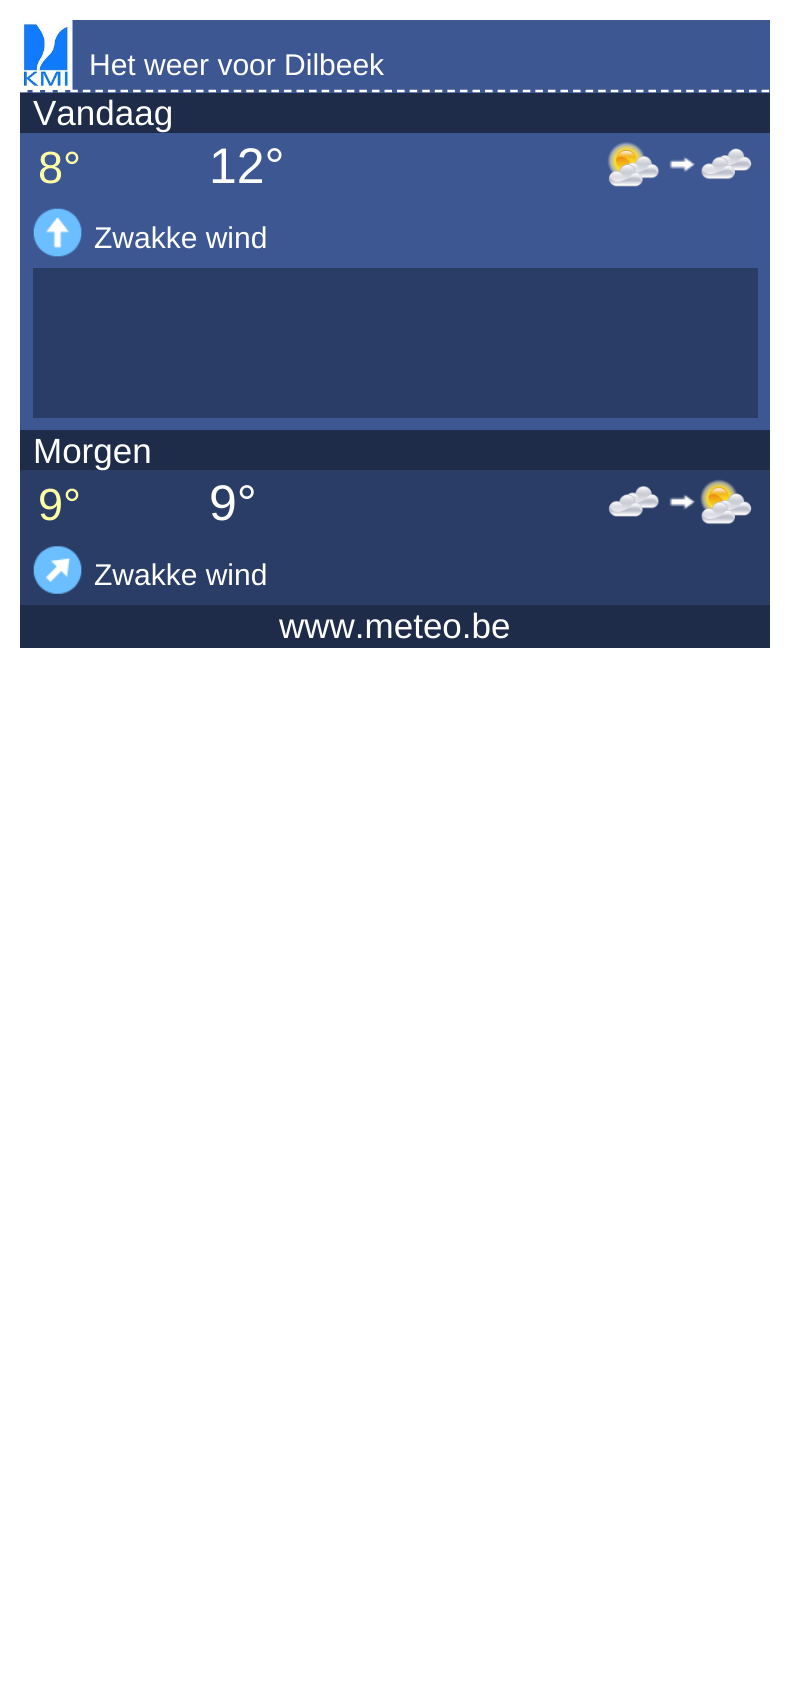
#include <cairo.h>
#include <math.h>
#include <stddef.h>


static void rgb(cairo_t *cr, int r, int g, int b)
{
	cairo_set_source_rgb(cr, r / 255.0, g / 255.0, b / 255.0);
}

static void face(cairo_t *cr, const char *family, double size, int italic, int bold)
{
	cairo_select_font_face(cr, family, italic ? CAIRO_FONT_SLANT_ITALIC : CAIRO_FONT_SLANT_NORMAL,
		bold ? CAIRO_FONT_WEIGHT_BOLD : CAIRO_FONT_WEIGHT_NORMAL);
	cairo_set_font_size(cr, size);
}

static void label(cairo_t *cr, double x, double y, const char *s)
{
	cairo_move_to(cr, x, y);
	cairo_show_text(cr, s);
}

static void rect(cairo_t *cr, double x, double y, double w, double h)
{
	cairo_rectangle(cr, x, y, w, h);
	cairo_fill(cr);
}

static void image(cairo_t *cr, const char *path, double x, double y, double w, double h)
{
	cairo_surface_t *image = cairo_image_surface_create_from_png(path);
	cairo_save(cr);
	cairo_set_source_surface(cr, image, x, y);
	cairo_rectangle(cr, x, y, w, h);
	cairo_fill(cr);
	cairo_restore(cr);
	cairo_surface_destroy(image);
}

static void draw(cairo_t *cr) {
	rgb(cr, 255, 255, 255);
	cairo_paint(cr);
	rgb(cr, 60, 87, 146);
	rect(cr, 20, 20, 750, 410);
	cairo_new_path(cr);
	cairo_move_to(cr, 20, 91);
	cairo_line_to(cr, 770, 91);
	rgb(cr, 255, 255, 255);
	cairo_set_line_width(cr, 2.5);
	cairo_set_dash(cr, (double[]){7.5, 5.07}, 2, 0);
	cairo_stroke(cr);
	image(cr, "image0.png", 20, 20, 53, 70);
	face(cr, "Liberation Sans", 30, 0, 0);
	label(cr, 89, 75, "Het weer voor Dilbeek");
	rgb(cr, 30, 44, 73);
	rect(cr, 20, 93, 750, 40);
	face(cr, "Liberation Sans", 35, 0, 0);
	rgb(cr, 255, 255, 255);
	label(cr, 33, 125, "Vandaag");
	face(cr, "Liberation Sans", 45, 0, 0);
	rgb(cr, 253, 255, 165);
	label(cr, 38, 183, "8°");
	face(cr, "Liberation Sans", 50, 0, 0);
	rgb(cr, 255, 255, 255);
	label(cr, 209, 183, "12°");
	image(cr, "image1.png", 607, 142, 52, 45);
	image(cr, "image2.png", 669, 156, 26, 16);
	image(cr, "image3.png", 701, 148, 51, 32);
	image(cr, "image4.png", 33, 208, 49, 49);
	face(cr, "Liberation Sans", 30, 0, 0);
	label(cr, 94, 248, "Zwakke wind");
	rgb(cr, 42, 61, 102);
	rect(cr, 33, 268, 725, 150);
	rgb(cr, 30, 44, 73);
	rect(cr, 20, 430, 750, 40);
	rgb(cr, 42, 61, 102);
	rect(cr, 20, 470, 750, 135);
	face(cr, "Liberation Sans", 35, 0, 0);
	rgb(cr, 255, 255, 255);
	label(cr, 33, 463, "Morgen");
	face(cr, "Liberation Sans", 45, 0, 0);
	rgb(cr, 253, 255, 165);
	label(cr, 38, 520, "9°");
	face(cr, "Liberation Sans", 50, 0, 0);
	rgb(cr, 255, 255, 255);
	label(cr, 209, 520, "9°");
	image(cr, "image5.png", 608, 485, 51, 32);
	image(cr, "image6.png", 669, 494, 26, 16);
	image(cr, "image7.png", 700, 479, 52, 46);
	image(cr, "image8.png", 33, 546, 49, 48);
	face(cr, "Liberation Sans", 30, 0, 0);
	label(cr, 94, 585, "Zwakke wind");
	rgb(cr, 30, 44, 73);
	rect(cr, 20, 605, 750, 43);
	face(cr, "Liberation Sans", 35, 0, 0);
	rgb(cr, 255, 255, 255);
	label(cr, 279, 638, "www.meteo.be");
}

int main(void) {
	cairo_surface_t *surface = cairo_image_surface_create(CAIRO_FORMAT_RGB24, 789, 1688);
	cairo_t *cr = cairo_create(surface);
	cairo_font_options_t *options = cairo_font_options_create();
	cairo_font_options_set_hint_metrics(options, CAIRO_HINT_METRICS_OFF);
	cairo_font_options_set_hint_style(options, CAIRO_HINT_STYLE_NONE);
	cairo_set_font_options(cr, options);
	cairo_set_miter_limit(cr, 4);
	draw(cr);
	cairo_surface_write_to_png(surface, "render.png");
	cairo_font_options_destroy(options);
	cairo_destroy(cr);
	cairo_surface_destroy(surface);
	return 0;
}
